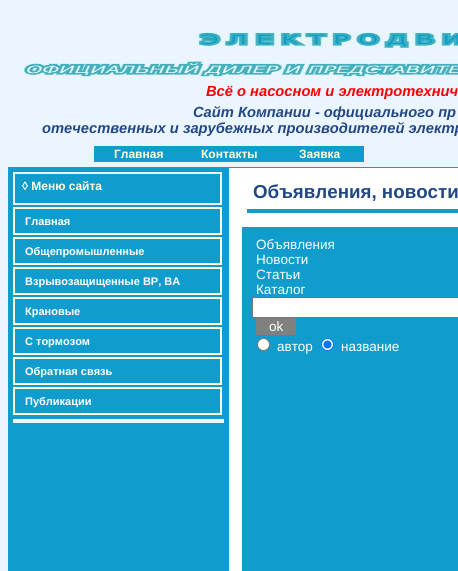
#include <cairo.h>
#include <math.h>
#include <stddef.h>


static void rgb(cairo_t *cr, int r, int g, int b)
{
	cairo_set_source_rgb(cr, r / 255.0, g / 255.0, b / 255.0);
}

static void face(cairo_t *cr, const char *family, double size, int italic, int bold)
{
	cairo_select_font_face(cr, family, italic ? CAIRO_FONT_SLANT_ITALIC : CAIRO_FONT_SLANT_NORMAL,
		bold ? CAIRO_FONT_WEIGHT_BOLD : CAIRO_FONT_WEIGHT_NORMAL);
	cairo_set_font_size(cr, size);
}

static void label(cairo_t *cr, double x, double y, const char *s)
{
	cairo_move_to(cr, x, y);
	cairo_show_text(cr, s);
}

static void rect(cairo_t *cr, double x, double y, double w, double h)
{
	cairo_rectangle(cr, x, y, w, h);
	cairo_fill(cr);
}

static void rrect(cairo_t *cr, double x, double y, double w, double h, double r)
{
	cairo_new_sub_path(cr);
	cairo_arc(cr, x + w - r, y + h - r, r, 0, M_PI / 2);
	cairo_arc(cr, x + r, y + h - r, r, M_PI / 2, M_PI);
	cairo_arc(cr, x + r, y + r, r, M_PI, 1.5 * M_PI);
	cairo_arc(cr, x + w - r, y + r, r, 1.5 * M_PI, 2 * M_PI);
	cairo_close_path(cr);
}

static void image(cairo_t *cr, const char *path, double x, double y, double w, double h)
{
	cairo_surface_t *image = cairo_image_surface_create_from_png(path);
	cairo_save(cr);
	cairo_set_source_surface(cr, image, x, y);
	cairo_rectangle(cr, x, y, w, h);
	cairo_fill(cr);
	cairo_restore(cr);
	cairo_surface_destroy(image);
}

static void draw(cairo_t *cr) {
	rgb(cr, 235, 245, 255);
	cairo_paint(cr);
	image(cr, "image0.png", 22, 29, 436, 48);
	face(cr, "Liberation Sans", 14.7, 1, 1);
	rgb(cr, 255, 0, 0);
	label(cr, 206, 96, "Всё о насосном и электротехнич");
	rgb(cr, 33, 71, 134);
	label(cr, 193, 117, "Сайт Компании - официального пр");
	label(cr, 42, 133, "отечественных и зарубежных производителей электр");
	rgb(cr, 16, 157, 206);
	rect(cr, 94, 146, 270, 16);
	face(cr, "Liberation Sans", 12, 0, 1);
	rgb(cr, 255, 255, 223);
	label(cr, 114, 158, "Главная");
	label(cr, 201, 158, "Контакты");
	label(cr, 299, 158, "Заявка");
	rgb(cr, 16, 157, 206);
	rect(cr, 8, 167, 221, 404);
	rgb(cr, 235, 245, 255);
	rect(cr, 13, 172, 209, 33);
	rgb(cr, 16, 157, 206);
	rect(cr, 15, 174, 205, 29);
	rgb(cr, 255, 255, 223);
	label(cr, 22, 190, "◊ Меню сайта");
	rect(cr, 13, 207, 209, 28);
	rgb(cr, 16, 157, 206);
	rect(cr, 15, 209, 205, 24);
	face(cr, "Liberation Sans", 11, 0, 1);
	rgb(cr, 255, 255, 255);
	label(cr, 25, 225, "Главная");
	rgb(cr, 255, 255, 223);
	rect(cr, 13, 237, 209, 28);
	rgb(cr, 16, 157, 206);
	rect(cr, 15, 239, 205, 24);
	rgb(cr, 255, 255, 255);
	label(cr, 25, 255, "Общепромышленные");
	rgb(cr, 255, 255, 223);
	rect(cr, 13, 267, 209, 28);
	rgb(cr, 16, 157, 206);
	rect(cr, 15, 269, 205, 24);
	rgb(cr, 255, 255, 255);
	label(cr, 25, 285, "Взрывозащищенные ВР, ВА");
	rgb(cr, 255, 255, 223);
	rect(cr, 13, 297, 209, 28);
	rgb(cr, 16, 157, 206);
	rect(cr, 15, 299, 205, 24);
	rgb(cr, 255, 255, 255);
	label(cr, 25, 315, "Крановые");
	rgb(cr, 255, 255, 223);
	rect(cr, 13, 327, 209, 28);
	rgb(cr, 16, 157, 206);
	rect(cr, 15, 329, 205, 24);
	rgb(cr, 255, 255, 255);
	label(cr, 25, 345, "С тормозом");
	rgb(cr, 255, 255, 223);
	rect(cr, 13, 357, 209, 28);
	rgb(cr, 16, 157, 206);
	rect(cr, 15, 359, 205, 24);
	rgb(cr, 255, 255, 255);
	label(cr, 25, 375, "Обратная связь");
	rgb(cr, 255, 255, 223);
	rect(cr, 13, 387, 209, 28);
	rgb(cr, 16, 157, 206);
	rect(cr, 15, 389, 205, 24);
	rgb(cr, 255, 255, 255);
	label(cr, 25, 405, "Публикации");
	rgb(cr, 235, 245, 255);
	rect(cr, 13, 419, 211, 4);
	rgb(cr, 255, 255, 255);
	rect(cr, 229, 168, 229, 403);
	rgb(cr, 16, 157, 206);
	rect(cr, 229, 167, 229, 1);
	face(cr, "Liberation Sans", 18.75, 0, 1);
	rgb(cr, 33, 71, 134);
	label(cr, 253, 198, "Объявления, новости");
	rgb(cr, 16, 157, 206);
	rect(cr, 247, 209, 211, 4);
	rect(cr, 242, 227, 216, 344);
	face(cr, "Liberation Sans", 13.5, 0, 0);
	rgb(cr, 255, 255, 255);
	label(cr, 256, 249, "Объявления");
	label(cr, 256, 264, "Новости");
	label(cr, 256, 279, "Статьи");
	label(cr, 256, 294, "Каталог");
	rrect(cr, 252.5, 297.5, 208, 20, 1.5);
	cairo_fill_preserve(cr);
	rgb(cr, 118, 118, 118);
	cairo_set_line_width(cr, 1);
	cairo_stroke(cr);
	rgb(cr, 128, 128, 128);
	rect(cr, 256, 318, 40, 17);
	rgb(cr, 255, 255, 255);
	label(cr, 269, 331, "ok");
	cairo_new_path(cr);
	cairo_arc(cr, 263.5, 344.5, 6, 0, 2 * M_PI);
	cairo_fill_preserve(cr);
	rgb(cr, 118, 118, 118);
	cairo_stroke(cr);
	rgb(cr, 255, 255, 255);
	label(cr, 277, 351, "автор");
	cairo_new_path(cr);
	cairo_arc(cr, 327.5, 344.5, 6, 0, 2 * M_PI);
	cairo_fill_preserve(cr);
	rgb(cr, 0, 117, 255);
	cairo_stroke(cr);
	cairo_arc(cr, 327.5, 344.5, 4, 0, 2 * M_PI);
	cairo_fill(cr);
	rgb(cr, 255, 255, 255);
	label(cr, 341, 351, "название");
}

int main(void) {
	cairo_surface_t *surface = cairo_image_surface_create(CAIRO_FORMAT_RGB24, 458, 571);
	cairo_t *cr = cairo_create(surface);
	cairo_font_options_t *options = cairo_font_options_create();
	cairo_font_options_set_hint_metrics(options, CAIRO_HINT_METRICS_OFF);
	cairo_font_options_set_hint_style(options, CAIRO_HINT_STYLE_NONE);
	cairo_set_font_options(cr, options);
	cairo_set_miter_limit(cr, 4);
	draw(cr);
	cairo_surface_write_to_png(surface, "render.png");
	cairo_font_options_destroy(options);
	cairo_destroy(cr);
	cairo_surface_destroy(surface);
	return 0;
}
